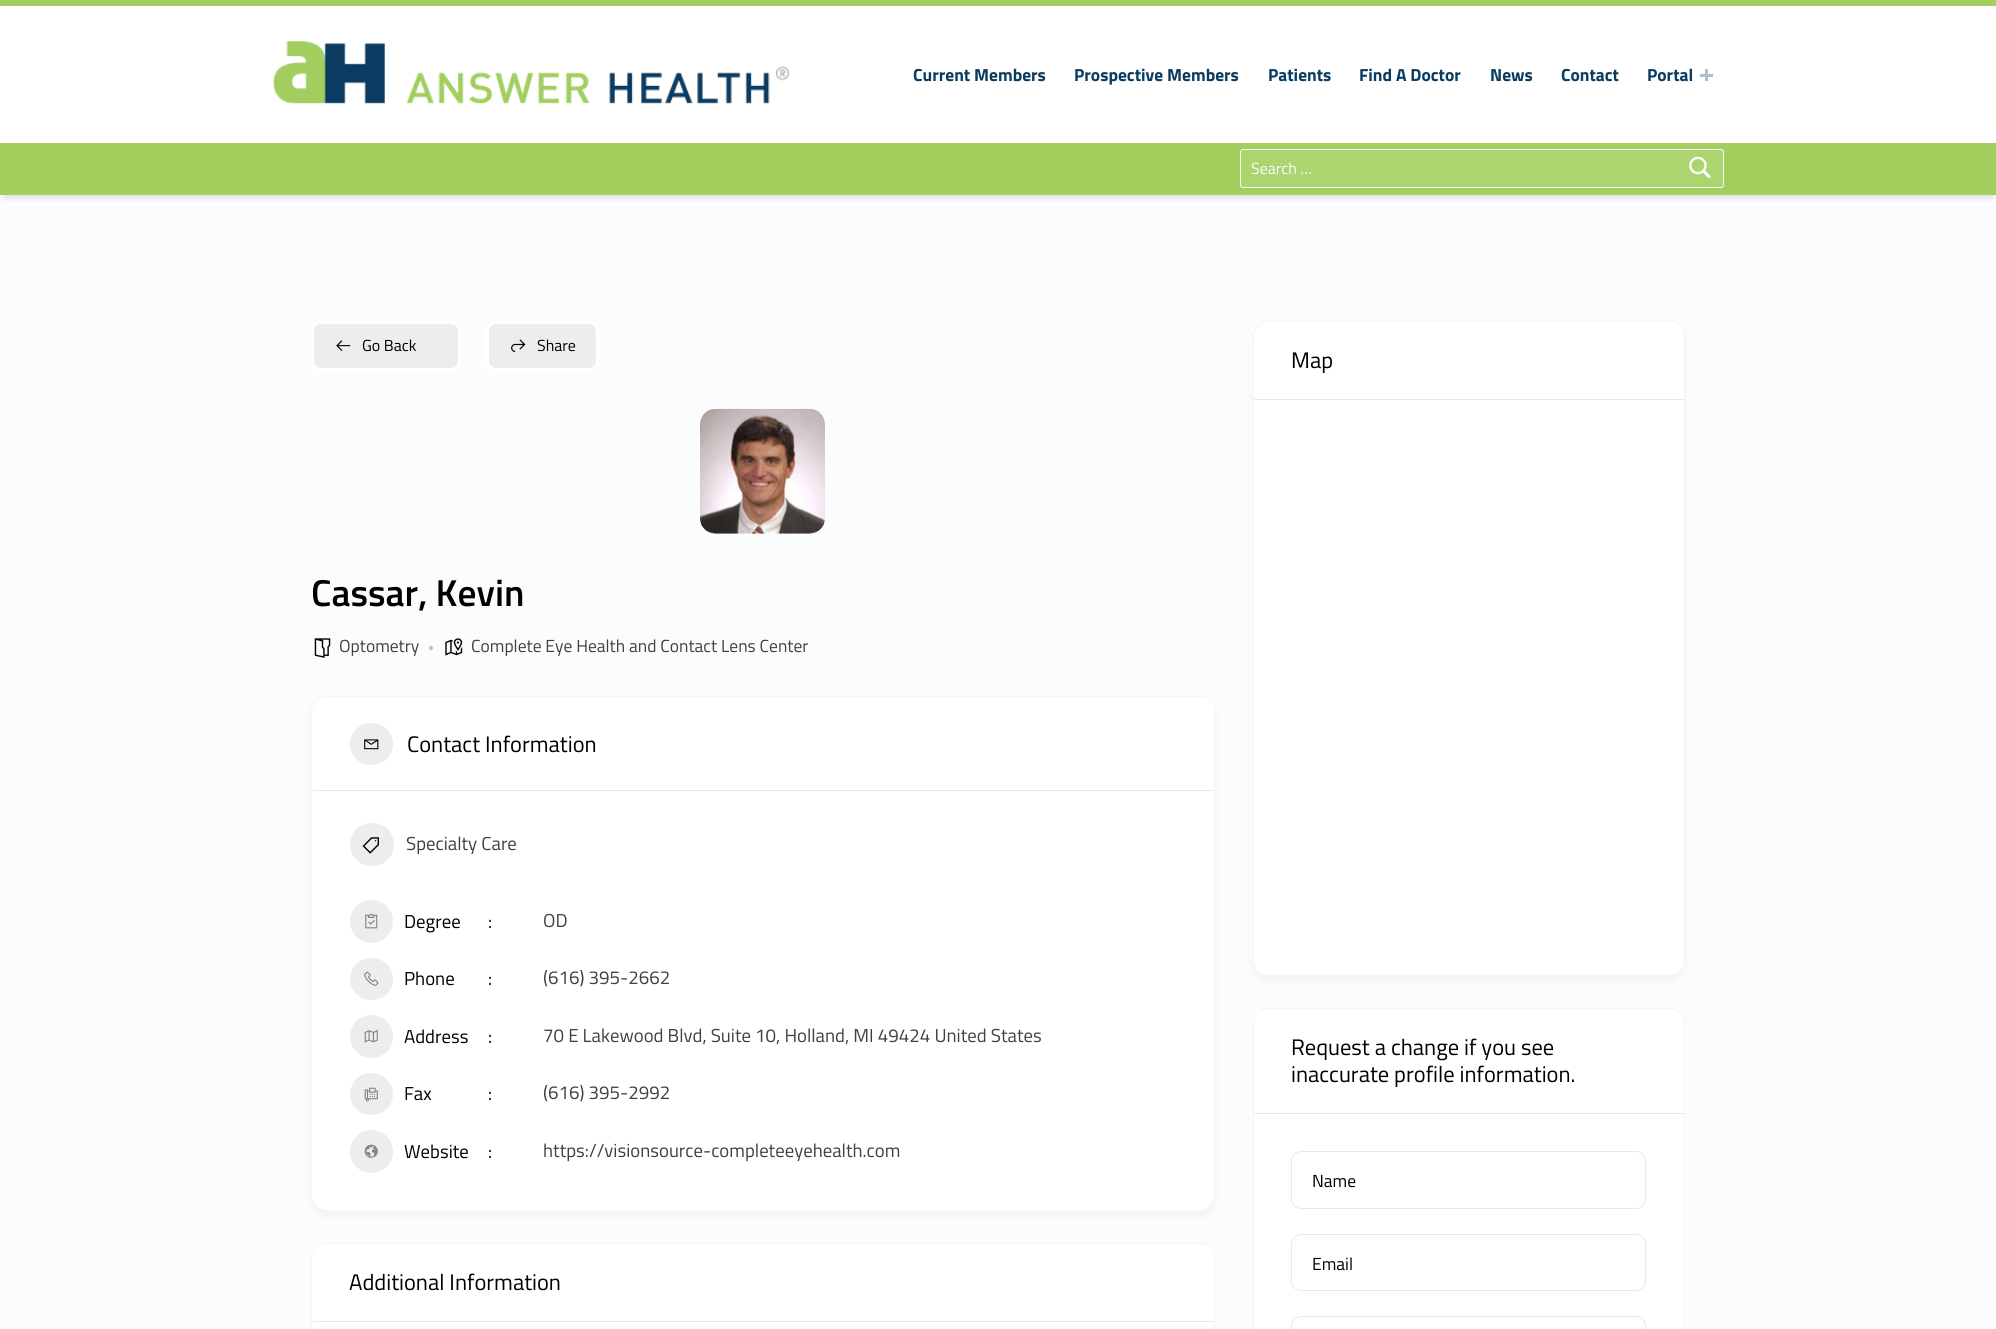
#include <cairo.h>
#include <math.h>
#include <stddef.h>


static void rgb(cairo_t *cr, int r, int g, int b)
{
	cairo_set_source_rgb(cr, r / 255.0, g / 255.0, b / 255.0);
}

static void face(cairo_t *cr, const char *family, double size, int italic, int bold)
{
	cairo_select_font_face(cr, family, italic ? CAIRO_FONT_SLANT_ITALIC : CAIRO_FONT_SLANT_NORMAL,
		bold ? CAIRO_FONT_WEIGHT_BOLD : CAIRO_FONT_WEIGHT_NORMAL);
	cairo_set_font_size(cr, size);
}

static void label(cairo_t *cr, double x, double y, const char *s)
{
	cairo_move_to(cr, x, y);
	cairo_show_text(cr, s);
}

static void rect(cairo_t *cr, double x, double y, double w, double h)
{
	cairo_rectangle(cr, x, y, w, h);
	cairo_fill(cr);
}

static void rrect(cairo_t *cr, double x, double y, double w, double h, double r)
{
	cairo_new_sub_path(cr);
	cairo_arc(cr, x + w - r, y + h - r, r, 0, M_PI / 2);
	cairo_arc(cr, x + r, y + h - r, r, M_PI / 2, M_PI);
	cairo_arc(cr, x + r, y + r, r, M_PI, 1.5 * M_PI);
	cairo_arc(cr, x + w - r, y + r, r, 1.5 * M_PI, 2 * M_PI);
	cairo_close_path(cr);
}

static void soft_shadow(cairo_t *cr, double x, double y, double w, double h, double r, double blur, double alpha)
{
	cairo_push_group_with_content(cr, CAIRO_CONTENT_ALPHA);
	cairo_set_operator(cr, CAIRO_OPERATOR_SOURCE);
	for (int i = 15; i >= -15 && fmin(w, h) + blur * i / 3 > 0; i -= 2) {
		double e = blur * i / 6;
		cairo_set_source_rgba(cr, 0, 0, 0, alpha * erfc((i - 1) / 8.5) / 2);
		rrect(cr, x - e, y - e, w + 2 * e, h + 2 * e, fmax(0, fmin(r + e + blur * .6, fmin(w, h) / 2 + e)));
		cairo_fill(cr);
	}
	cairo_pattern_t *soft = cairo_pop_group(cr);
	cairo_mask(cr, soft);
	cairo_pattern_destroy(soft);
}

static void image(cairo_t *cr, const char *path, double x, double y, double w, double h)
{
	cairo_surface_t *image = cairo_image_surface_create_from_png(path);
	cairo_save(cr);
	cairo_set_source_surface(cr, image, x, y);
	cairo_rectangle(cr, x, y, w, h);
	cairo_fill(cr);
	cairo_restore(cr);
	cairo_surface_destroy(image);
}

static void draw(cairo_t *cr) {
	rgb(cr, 250, 252, 254);
	cairo_paint(cr);
	rgb(cr, 0, 0, 0);
	soft_shadow(cr, 4, 11, 1989, 188, 0, 2.5, 0.1);
	rgb(cr, 255, 255, 255);
	rect(cr, 0, 6, 1996, 137);
	rgb(cr, 163, 207, 95);
	rect(cr, 0, 0, 1996, 6);
	image(cr, "image0.png", 273, 41, 516, 63);
	face(cr, "Titillium Web", 17.5, 0, 1);
	rgb(cr, 10, 60, 97);
	label(cr, 913, 81, "Current Members");
	label(cr, 1074, 81, "Prospective Members");
	label(cr, 1268, 81, "Patients");
	label(cr, 1359, 81, "Find A Doctor");
	label(cr, 1490, 81, "News");
	label(cr, 1561, 81, "Contact");
	label(cr, 1647, 81, "Portal");
	rgb(cr, 174, 191, 203);
	rect(cr, 1700, 74, 13, 3);
	rect(cr, 1705, 69, 3, 12);
	rgb(cr, 163, 207, 95);
	rect(cr, 0, 143, 1996, 52);
	rgb(cr, 172, 212, 111);
	rrect(cr, 1240.5, 149.5, 483, 38, 2.5);
	cairo_fill_preserve(cr);
	rgb(cr, 250, 252, 254);
	cairo_set_line_width(cr, 1);
	cairo_stroke(cr);
	face(cr, "Titillium Web", 16, 0, 0);
	label(cr, 1251, 174, "Search …");
	image(cr, "image1.png", 1689, 156, 22, 23);
	rgb(cr, 237, 237, 237);
	rrect(cr, 312.5, 322.5, 147, 47, 8.5);
	cairo_fill_preserve(cr);
	rgb(cr, 255, 255, 255);
	cairo_set_line_width(cr, 3);
	cairo_stroke(cr);
	image(cr, "image2.png", 336, 340, 15, 11);
	rgb(cr, 0, 0, 0);
	label(cr, 362, 351, "Go Back");
	rgb(cr, 237, 237, 237);
	rrect(cr, 487.5, 322.5, 110, 47, 8.5);
	cairo_fill_preserve(cr);
	rgb(cr, 255, 255, 255);
	cairo_stroke(cr);
	image(cr, "image3.png", 511, 339, 15, 13);
	rgb(cr, 0, 0, 0);
	label(cr, 537, 351, "Share");
	rgb(cr, 255, 255, 255);
	rrect(cr, 700, 409, 125, 125, 15);
	cairo_fill(cr);
	image(cr, "image4.png", 700, 408, 125, 126);
	face(cr, "Titillium Web SemiBold", 37.5, 0, 0);
	rgb(cr, 0, 0, 0);
	label(cr, 311, 606, "Cassar, Kevin");
	image(cr, "image5.png", 314, 638, 17, 20);
	face(cr, "Titillium Web", 17.5, 0, 0);
	rgb(cr, 64, 64, 64);
	label(cr, 339, 652, "Optometry");
	rgb(cr, 188, 188, 188);
	cairo_new_path(cr);
	cairo_arc(cr, 431, 648, 2, 0, 2 * M_PI);
	cairo_fill(cr);
	image(cr, "image6.png", 445, 638, 18, 18);
	rgb(cr, 64, 64, 64);
	label(cr, 471, 652, "Complete Eye Health and Contact Lens Center");
	rgb(cr, 0, 0, 0);
	soft_shadow(cr, 311, 701, 904, 515, 15, 4, 0.04);
	rgb(cr, 255, 255, 255);
	rrect(cr, 311.5, 696.5, 903, 514, 14.5);
	cairo_fill_preserve(cr);
	rgb(cr, 245, 245, 245);
	cairo_set_line_width(cr, 1);
	cairo_stroke(cr);
	rgb(cr, 233, 233, 233);
	rect(cr, 313, 790, 901, 1);
	rgb(cr, 237, 237, 237);
	rrect(cr, 350, 723, 43, 42, 21);
	cairo_fill(cr);
	image(cr, "image7.png", 364, 739, 15, 11);
	face(cr, "Titillium Web", 22.5, 0, 0);
	rgb(cr, 0, 0, 0);
	label(cr, 407, 752, "Contact Information");
	rgb(cr, 237, 237, 237);
	rrect(cr, 350, 823, 44, 43, 21.5);
	cairo_fill(cr);
	image(cr, "image8.png", 362, 837, 17, 17);
	face(cr, "Titillium Web", 18.75, 0, 0);
	rgb(cr, 64, 64, 64);
	label(cr, 406, 850, "Specialty Care");
	rgb(cr, 237, 237, 237);
	cairo_new_path(cr);
	cairo_arc(cr, 371.5, 921.5, 21.5, 0, 2 * M_PI);
	cairo_fill(cr);
	image(cr, "image9.png", 365, 913, 13, 16);
	rgb(cr, 0, 0, 0);
	label(cr, 404, 928, "Degree");
	label(cr, 488, 928, ":");
	rgb(cr, 64, 64, 64);
	label(cr, 543, 927, "OD");
	rgb(cr, 237, 237, 237);
	rrect(cr, 350, 958, 43, 42, 21);
	cairo_fill(cr);
	image(cr, "image10.png", 364, 971, 15, 15);
	rgb(cr, 0, 0, 0);
	label(cr, 404, 985, "Phone");
	label(cr, 488, 985, ":");
	rgb(cr, 64, 64, 64);
	label(cr, 543, 984, "(616) 395-2662");
	rgb(cr, 237, 237, 237);
	cairo_new_path(cr);
	cairo_arc(cr, 371.5, 1036.5, 21.5, 0, 2 * M_PI);
	cairo_fill(cr);
	image(cr, "image11.png", 364, 1030, 14, 13);
	rgb(cr, 0, 0, 0);
	label(cr, 404, 1043, "Address");
	label(cr, 488, 1043, ":");
	rgb(cr, 64, 64, 64);
	label(cr, 543, 1042, "70 E Lakewood Blvd, Suite 10, Holland, MI 49424 United States");
	rgb(cr, 237, 237, 237);
	rrect(cr, 350, 1073, 43, 42, 21);
	cairo_fill(cr);
	image(cr, "image12.png", 364, 1087, 14, 15);
	rgb(cr, 0, 0, 0);
	label(cr, 404, 1100, "Fax");
	label(cr, 488, 1100, ":");
	rgb(cr, 64, 64, 64);
	label(cr, 543, 1099, "(616) 395-2992");
	rgb(cr, 237, 237, 237);
	cairo_new_path(cr);
	cairo_arc(cr, 371.5, 1151.5, 21.5, 0, 2 * M_PI);
	cairo_fill(cr);
	image(cr, "image13.png", 364, 1144, 14, 14);
	rgb(cr, 0, 0, 0);
	label(cr, 404, 1158, "Website");
	label(cr, 488, 1158, ":");
	rgb(cr, 64, 64, 64);
	label(cr, 543, 1157, "https://visionsource-completeeyehealth.com");
	rgb(cr, 255, 255, 255);
	rrect(cr, 311.5, 1243.5, 903, 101, 14.5);
	cairo_fill_preserve(cr);
	rgb(cr, 245, 245, 245);
	cairo_stroke(cr);
	rgb(cr, 233, 233, 233);
	rect(cr, 313, 1321, 901, 1);
	face(cr, "Titillium Web", 22.5, 0, 0);
	rgb(cr, 0, 0, 0);
	label(cr, 349, 1290, "Additional Information");
	rgb(cr, 0, 0, 0);
	soft_shadow(cr, 1253, 326, 432, 655, 15, 4, 0.04);
	rgb(cr, 255, 255, 255);
	rrect(cr, 1253.5, 321.5, 431, 654, 14.5);
	cairo_fill_preserve(cr);
	rgb(cr, 245, 245, 245);
	cairo_stroke(cr);
	rgb(cr, 233, 233, 233);
	rect(cr, 1254, 399, 430, 1);
	rgb(cr, 0, 0, 0);
	label(cr, 1291, 368, "Map");
	rgb(cr, 255, 255, 255);
	rrect(cr, 1253.5, 1008.5, 431, 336, 14.5);
	cairo_fill_preserve(cr);
	rgb(cr, 245, 245, 245);
	cairo_stroke(cr);
	rgb(cr, 233, 233, 233);
	rect(cr, 1254, 1113, 430, 1);
	rgb(cr, 0, 0, 0);
	label(cr, 1291, 1055, "Request a change if you see");
	label(cr, 1291, 1082, "inaccurate profile information.");
	rrect(cr, 1291.5, 1151.5, 354, 57, 9.5);
	rgb(cr, 233, 233, 233);
	cairo_stroke(cr);
	face(cr, "Titillium Web", 17.5, 0, 0);
	rgb(cr, 0, 0, 0);
	label(cr, 1312, 1187, "Name");
	rrect(cr, 1291.5, 1234.5, 354, 56, 9.5);
	rgb(cr, 233, 233, 233);
	cairo_stroke(cr);
	rgb(cr, 0, 0, 0);
	label(cr, 1312, 1270, "Email");
	rrect(cr, 1291.5, 1316.5, 354, 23, 9.5);
	rgb(cr, 233, 233, 233);
	cairo_stroke(cr);
}

int main(void) {
	cairo_surface_t *surface = cairo_image_surface_create(CAIRO_FORMAT_RGB24, 1996, 1329);
	cairo_t *cr = cairo_create(surface);
	cairo_font_options_t *options = cairo_font_options_create();
	cairo_font_options_set_hint_metrics(options, CAIRO_HINT_METRICS_OFF);
	cairo_font_options_set_hint_style(options, CAIRO_HINT_STYLE_NONE);
	cairo_set_font_options(cr, options);
	cairo_set_miter_limit(cr, 4);
	draw(cr);
	cairo_surface_write_to_png(surface, "render.png");
	cairo_font_options_destroy(options);
	cairo_destroy(cr);
	cairo_surface_destroy(surface);
	return 0;
}
